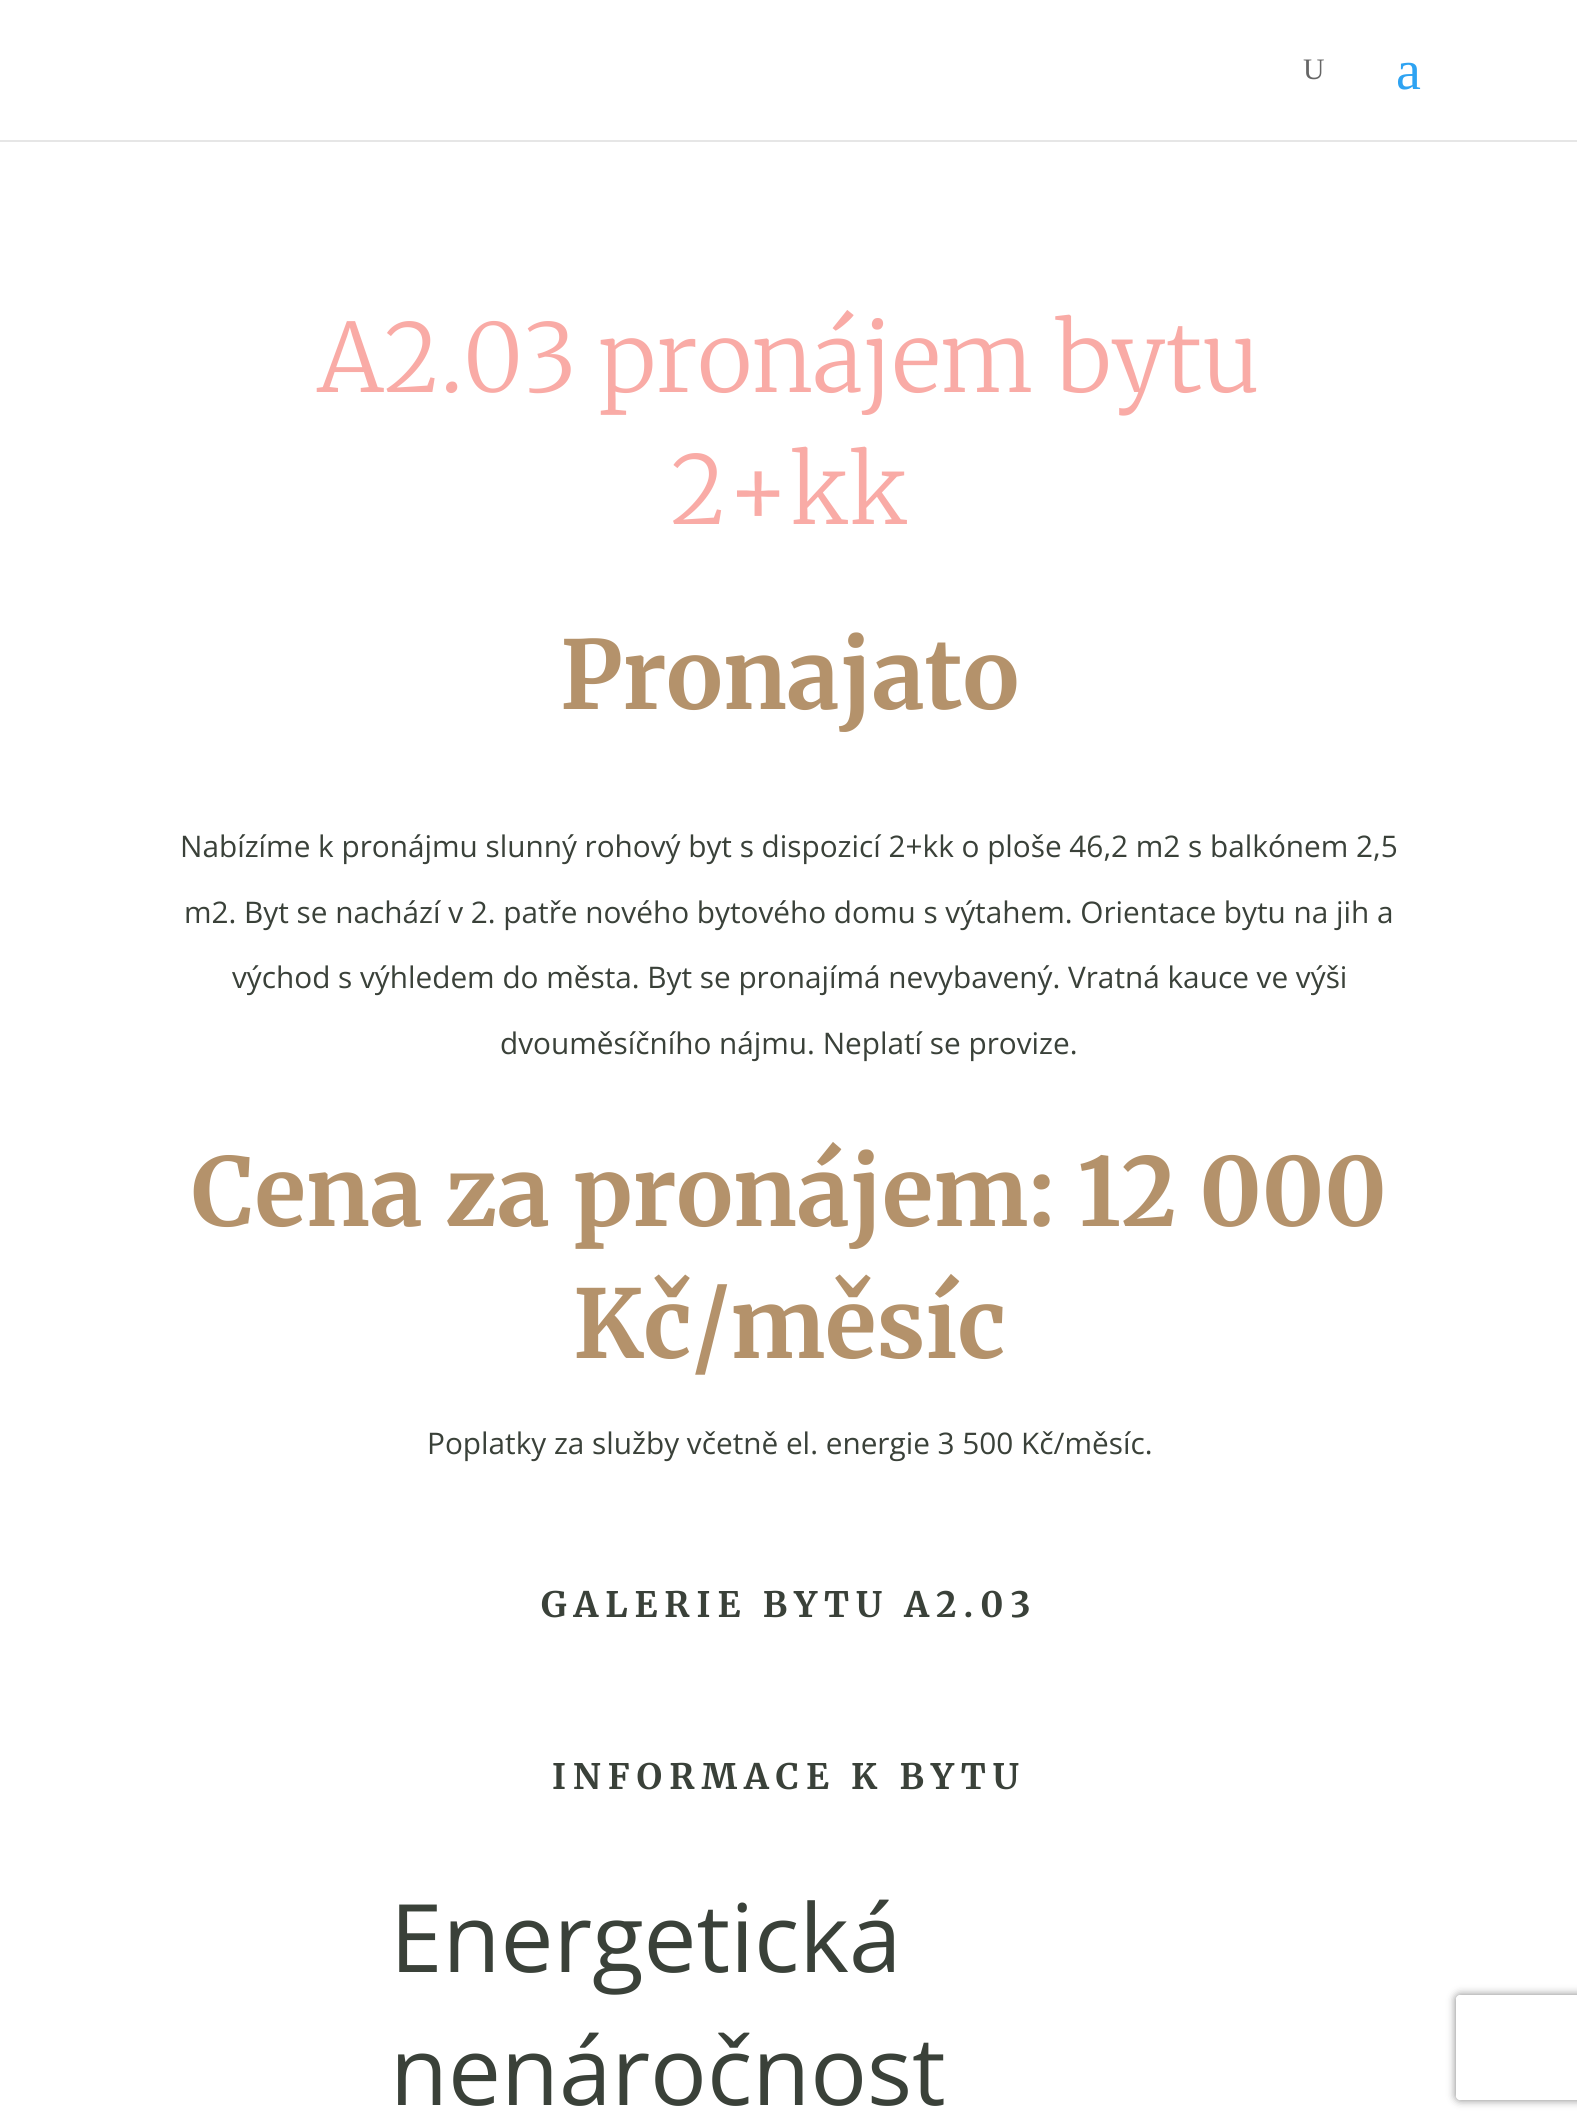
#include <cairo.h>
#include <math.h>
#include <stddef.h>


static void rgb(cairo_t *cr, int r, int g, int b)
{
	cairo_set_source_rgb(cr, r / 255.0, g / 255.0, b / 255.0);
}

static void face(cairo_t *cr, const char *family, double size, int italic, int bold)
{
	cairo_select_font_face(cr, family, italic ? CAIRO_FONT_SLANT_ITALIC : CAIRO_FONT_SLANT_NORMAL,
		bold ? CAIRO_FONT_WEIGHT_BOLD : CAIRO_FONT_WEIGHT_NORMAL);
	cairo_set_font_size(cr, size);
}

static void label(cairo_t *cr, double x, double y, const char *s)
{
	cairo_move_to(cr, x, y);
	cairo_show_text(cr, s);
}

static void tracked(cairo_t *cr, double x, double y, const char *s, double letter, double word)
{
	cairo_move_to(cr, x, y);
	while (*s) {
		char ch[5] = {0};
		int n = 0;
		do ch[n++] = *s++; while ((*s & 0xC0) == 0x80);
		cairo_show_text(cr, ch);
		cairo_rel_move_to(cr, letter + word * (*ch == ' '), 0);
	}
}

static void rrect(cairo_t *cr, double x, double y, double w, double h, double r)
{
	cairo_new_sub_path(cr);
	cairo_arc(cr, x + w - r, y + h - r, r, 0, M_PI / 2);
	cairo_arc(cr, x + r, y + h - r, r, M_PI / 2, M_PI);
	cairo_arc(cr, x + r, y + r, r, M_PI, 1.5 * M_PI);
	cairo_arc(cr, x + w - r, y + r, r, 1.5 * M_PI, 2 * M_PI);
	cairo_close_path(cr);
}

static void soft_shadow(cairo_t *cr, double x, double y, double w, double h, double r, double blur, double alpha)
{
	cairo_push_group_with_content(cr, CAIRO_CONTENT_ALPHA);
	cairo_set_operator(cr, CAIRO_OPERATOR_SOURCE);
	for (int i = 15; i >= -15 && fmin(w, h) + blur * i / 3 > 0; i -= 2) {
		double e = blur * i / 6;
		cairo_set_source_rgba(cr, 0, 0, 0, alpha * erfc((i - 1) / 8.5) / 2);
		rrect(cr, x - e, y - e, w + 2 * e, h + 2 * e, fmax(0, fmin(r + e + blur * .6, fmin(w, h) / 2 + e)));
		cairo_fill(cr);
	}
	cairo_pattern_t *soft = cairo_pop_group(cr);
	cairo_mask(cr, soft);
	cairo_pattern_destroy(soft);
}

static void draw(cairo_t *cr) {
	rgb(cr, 255, 255, 255);
	cairo_paint(cr);
	rgb(cr, 230, 230, 230);
	cairo_new_path(cr);
	cairo_move_to(cr, 0, 140);
	cairo_line_to(cr, 0, 142);
	cairo_line_to(cr, 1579, 142);
	cairo_line_to(cr, 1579, 2);
	cairo_line_to(cr, 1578, 2);
	cairo_line_to(cr, 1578, 140);
	cairo_close_path(cr);
	cairo_fill(cr);
	face(cr, "Liberation Serif", 29.75, 0, 0);
	rgb(cr, 102, 102, 102);
	label(cr, 1303, 79, "U");
	face(cr, "Liberation Serif", 56, 0, 0);
	rgb(cr, 46, 163, 242);
	label(cr, 1396, 89, "a");
	face(cr, "Merriweather Light", 94.5, 0, 0);
	rgb(cr, 249, 171, 166);
	label(cr, 317, 392, "A2.03 pronájem bytu");
	label(cr, 670, 524, "2+kk");
	face(cr, "Merriweather", 94.5, 0, 1);
	rgb(cr, 180, 146, 107);
	label(cr, 560, 709, "Pronajato");
	face(cr, "Open Sans", 29.75, 0, 0);
	rgb(cr, 58, 65, 57);
	label(cr, 180, 857, "Nabízíme k pronájmu slunný rohový byt s dispozicí 2+kk o ploše 46,2 m2 s balkónem 2,5");
	label(cr, 184, 923, "m2. Byt se nachází v 2. patře nového bytového domu s výtahem. Orientace bytu na jih a");
	label(cr, 232, 988, "východ s výhledem do města. Byt se pronajímá nevybavený. Vratná kauce ve výši");
	label(cr, 500, 1054, "dvouměsíčního nájmu. Neplatí se provize.");
	face(cr, "Merriweather", 94.5, 0, 1);
	rgb(cr, 180, 146, 107);
	label(cr, 192, 1226, "Cena za pronájem: 12 000");
	label(cr, 573, 1358, "Kč/měsíc");
	face(cr, "Open Sans", 29.75, 0, 0);
	rgb(cr, 58, 65, 57);
	label(cr, 427, 1454, "Poplatky za služby včetně el. energie 3 500 Kč/měsíc.");
	face(cr, "Merriweather", 35, 0, 1);
	tracked(cr, 541, 1617, "GALERIE BYTU A2.03", 7, 0);
	tracked(cr, 552, 1789, "INFORMACE K BYTU", 7, 0);
	face(cr, "Open Sans", 94.5, 0, 0);
	label(cr, 390, 1972, "Energetická");
	label(cr, 390, 2105, "nenáročnost");
	cairo_save(cr);
	cairo_set_fill_rule(cr, CAIRO_FILL_RULE_EVEN_ODD);
	cairo_new_path(cr);
	cairo_move_to(cr, 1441, 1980);
	cairo_line_to(cr, 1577, 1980);
	cairo_line_to(cr, 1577, 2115);
	cairo_line_to(cr, 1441, 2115);
	cairo_close_path(cr);
	cairo_move_to(cr, 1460, 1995);
	cairo_line_to(cr, 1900, 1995);
	cairo_curve_to(cr, 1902, 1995, 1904, 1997, 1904, 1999);
	cairo_line_to(cr, 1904, 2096);
	cairo_curve_to(cr, 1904, 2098, 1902, 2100, 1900, 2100);
	cairo_line_to(cr, 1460, 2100);
	cairo_curve_to(cr, 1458, 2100, 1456, 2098, 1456, 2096);
	cairo_line_to(cr, 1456, 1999);
	cairo_curve_to(cr, 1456, 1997, 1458, 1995, 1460, 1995);
	cairo_close_path(cr);
	cairo_clip(cr);
	rgb(cr, 128, 128, 128);
	soft_shadow(cr, 1456, 1995, 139, 105, 4, 4.5, 1);
	cairo_restore(cr);
}

int main(void) {
	cairo_surface_t *surface = cairo_image_surface_create(CAIRO_FORMAT_RGB24, 1577, 2123);
	cairo_t *cr = cairo_create(surface);
	cairo_font_options_t *options = cairo_font_options_create();
	cairo_font_options_set_hint_metrics(options, CAIRO_HINT_METRICS_OFF);
	cairo_font_options_set_hint_style(options, CAIRO_HINT_STYLE_NONE);
	cairo_set_font_options(cr, options);
	cairo_set_miter_limit(cr, 4);
	draw(cr);
	cairo_surface_write_to_png(surface, "render.png");
	cairo_font_options_destroy(options);
	cairo_destroy(cr);
	cairo_surface_destroy(surface);
	return 0;
}
